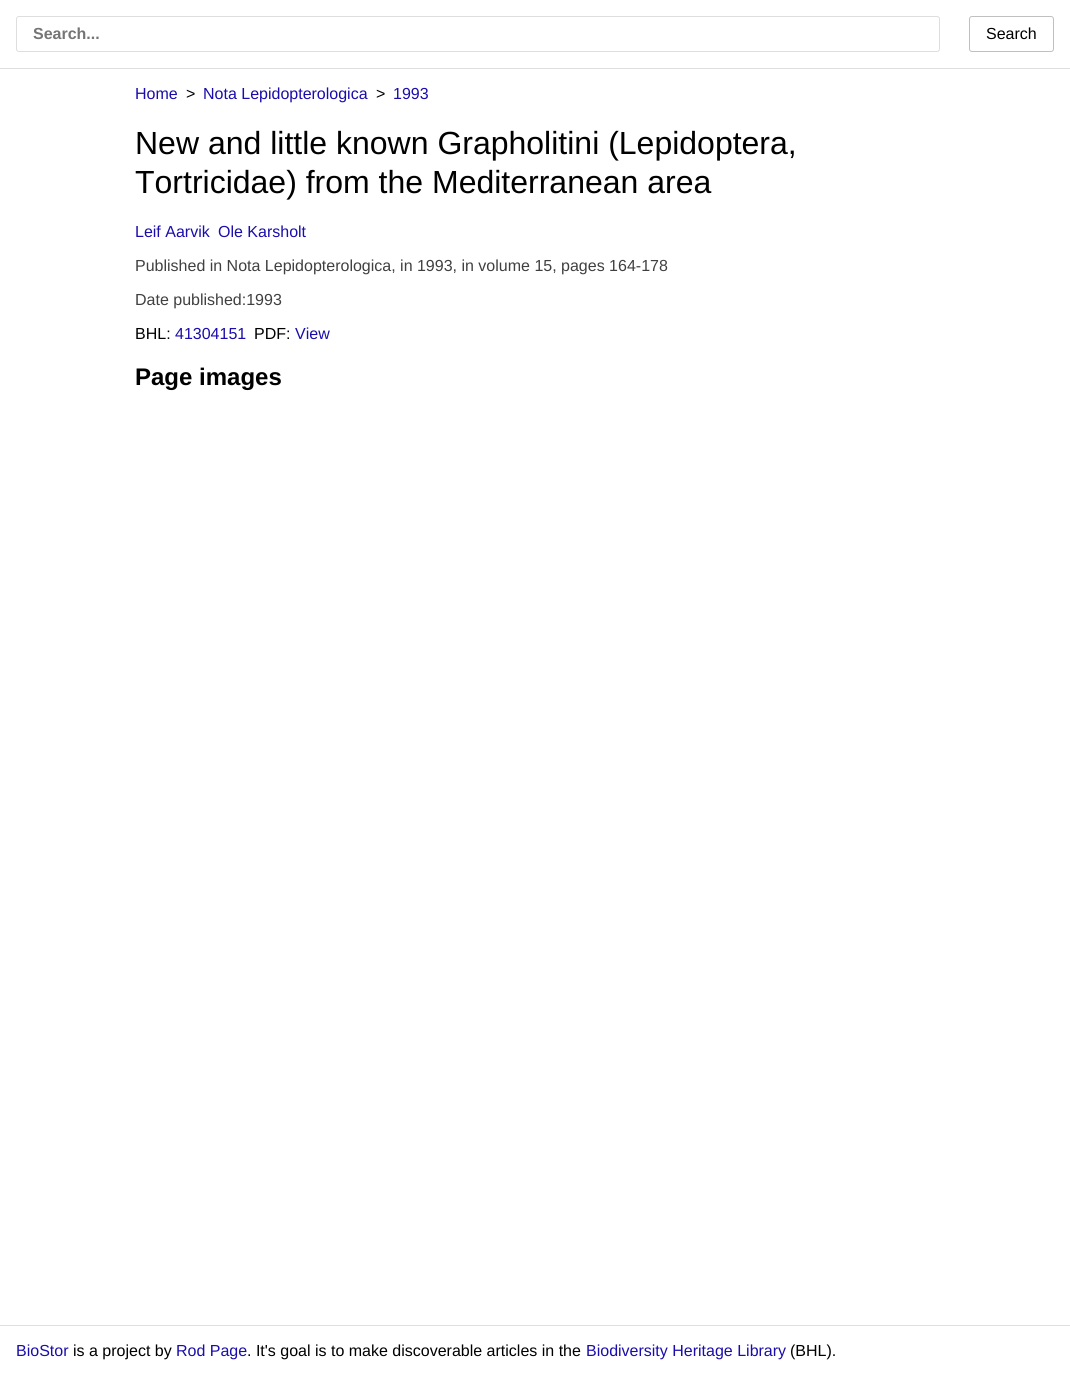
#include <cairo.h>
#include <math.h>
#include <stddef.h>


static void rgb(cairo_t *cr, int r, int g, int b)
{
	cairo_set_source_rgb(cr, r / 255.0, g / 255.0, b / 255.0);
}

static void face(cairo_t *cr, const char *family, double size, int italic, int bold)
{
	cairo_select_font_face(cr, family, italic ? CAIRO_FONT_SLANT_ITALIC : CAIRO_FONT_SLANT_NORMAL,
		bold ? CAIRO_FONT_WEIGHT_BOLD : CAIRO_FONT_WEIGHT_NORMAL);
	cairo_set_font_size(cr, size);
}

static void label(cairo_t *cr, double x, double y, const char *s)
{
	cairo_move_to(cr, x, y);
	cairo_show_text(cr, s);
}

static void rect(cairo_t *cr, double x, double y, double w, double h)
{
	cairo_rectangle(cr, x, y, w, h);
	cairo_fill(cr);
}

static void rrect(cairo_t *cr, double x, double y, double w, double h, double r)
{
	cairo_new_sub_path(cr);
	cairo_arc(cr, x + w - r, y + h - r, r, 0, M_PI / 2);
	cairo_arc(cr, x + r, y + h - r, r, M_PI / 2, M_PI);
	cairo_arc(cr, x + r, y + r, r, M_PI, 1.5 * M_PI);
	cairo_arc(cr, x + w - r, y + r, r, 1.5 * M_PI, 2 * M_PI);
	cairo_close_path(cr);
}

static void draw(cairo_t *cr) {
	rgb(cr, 255, 255, 255);
	cairo_paint(cr);
	rgb(cr, 222, 222, 222);
	rect(cr, 0, 68, 1070, 1);
	rrect(cr, 16.5, 16.5, 923, 35, 2.5);
	cairo_set_line_width(cr, 1);
	cairo_stroke(cr);
	face(cr, "Liberation Sans", 16, 0, 1);
	rgb(cr, 117, 117, 117);
	label(cr, 33, 39, "Search...");
	rrect(cr, 969.5, 16.5, 84, 35, 2.5);
	rgb(cr, 192, 192, 192);
	cairo_stroke(cr);
	face(cr, "Liberation Sans", 16, 0, 0);
	rgb(cr, 0, 0, 0);
	label(cr, 986, 39, "Search");
	rgb(cr, 26, 13, 171);
	label(cr, 135, 99, "Home");
	rgb(cr, 0, 0, 0);
	label(cr, 186, 99, ">");
	rgb(cr, 26, 13, 171);
	label(cr, 203, 99, "Nota Lepidopterologica");
	rgb(cr, 0, 0, 0);
	label(cr, 376, 99, ">");
	rgb(cr, 26, 13, 171);
	label(cr, 393, 99, "1993");
	face(cr, "Liberation Sans", 32, 0, 0);
	rgb(cr, 0, 0, 0);
	label(cr, 135, 154, "New and little known Grapholitini (Lepidoptera,");
	label(cr, 135, 193, "Tortricidae) from the Mediterranean area");
	face(cr, "Liberation Sans", 16, 0, 0);
	rgb(cr, 26, 13, 171);
	label(cr, 135, 237, "Leif Aarvik");
	label(cr, 218, 237, "Ole Karsholt");
	rgb(cr, 64, 64, 64);
	label(cr, 135, 271, "Published in Nota Lepidopterologica, in 1993, in volume 15, pages 164-178");
	label(cr, 135, 305, "Date published:1993");
	rgb(cr, 0, 0, 0);
	label(cr, 135, 339, "BHL:");
	rgb(cr, 26, 13, 171);
	label(cr, 175, 339, "41304151");
	rgb(cr, 0, 0, 0);
	label(cr, 254, 339, "PDF:");
	rgb(cr, 26, 13, 171);
	label(cr, 295, 339, "View");
	face(cr, "Liberation Sans", 24, 0, 1);
	rgb(cr, 0, 0, 0);
	label(cr, 135, 385, "Page images");
	rgb(cr, 222, 222, 222);
	rect(cr, 0, 1325, 1070, 1);
	face(cr, "Liberation Sans", 16, 0, 0);
	rgb(cr, 26, 13, 171);
	label(cr, 16, 1356, "BioStor");
	rgb(cr, 0, 0, 0);
	label(cr, 73, 1356, "is a project by");
	rgb(cr, 26, 13, 171);
	label(cr, 176, 1356, "Rod Page");
	rgb(cr, 0, 0, 0);
	label(cr, 247, 1356, ". It's goal is to make discoverable articles in the");
	rgb(cr, 26, 13, 171);
	label(cr, 586, 1356, "Biodiversity Heritage Library");
	rgb(cr, 0, 0, 0);
	label(cr, 790, 1356, "(BHL).");
}

int main(void) {
	cairo_surface_t *surface = cairo_image_surface_create(CAIRO_FORMAT_RGB24, 1070, 1376);
	cairo_t *cr = cairo_create(surface);
	cairo_font_options_t *options = cairo_font_options_create();
	cairo_font_options_set_hint_metrics(options, CAIRO_HINT_METRICS_OFF);
	cairo_font_options_set_hint_style(options, CAIRO_HINT_STYLE_NONE);
	cairo_set_font_options(cr, options);
	cairo_set_miter_limit(cr, 4);
	draw(cr);
	cairo_surface_write_to_png(surface, "render.png");
	cairo_font_options_destroy(options);
	cairo_destroy(cr);
	cairo_surface_destroy(surface);
	return 0;
}
